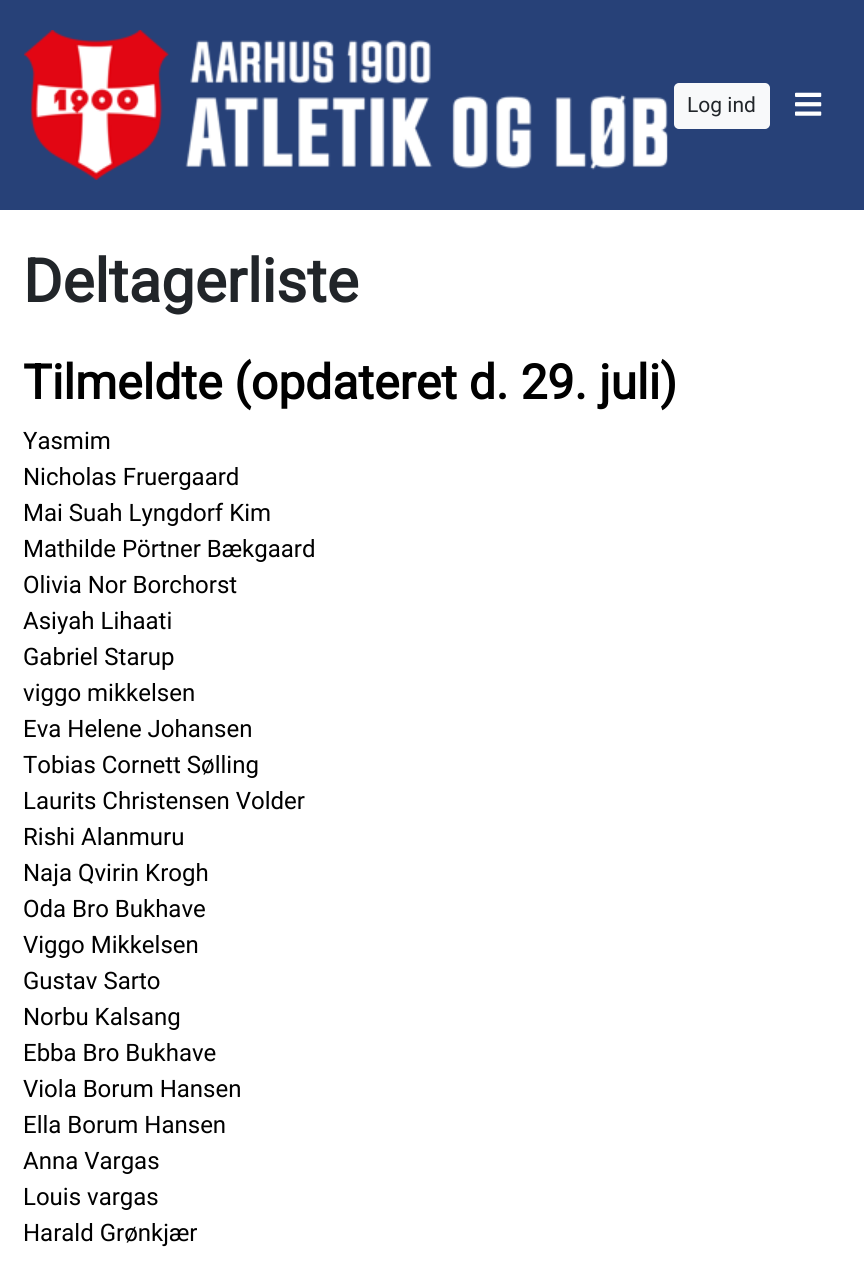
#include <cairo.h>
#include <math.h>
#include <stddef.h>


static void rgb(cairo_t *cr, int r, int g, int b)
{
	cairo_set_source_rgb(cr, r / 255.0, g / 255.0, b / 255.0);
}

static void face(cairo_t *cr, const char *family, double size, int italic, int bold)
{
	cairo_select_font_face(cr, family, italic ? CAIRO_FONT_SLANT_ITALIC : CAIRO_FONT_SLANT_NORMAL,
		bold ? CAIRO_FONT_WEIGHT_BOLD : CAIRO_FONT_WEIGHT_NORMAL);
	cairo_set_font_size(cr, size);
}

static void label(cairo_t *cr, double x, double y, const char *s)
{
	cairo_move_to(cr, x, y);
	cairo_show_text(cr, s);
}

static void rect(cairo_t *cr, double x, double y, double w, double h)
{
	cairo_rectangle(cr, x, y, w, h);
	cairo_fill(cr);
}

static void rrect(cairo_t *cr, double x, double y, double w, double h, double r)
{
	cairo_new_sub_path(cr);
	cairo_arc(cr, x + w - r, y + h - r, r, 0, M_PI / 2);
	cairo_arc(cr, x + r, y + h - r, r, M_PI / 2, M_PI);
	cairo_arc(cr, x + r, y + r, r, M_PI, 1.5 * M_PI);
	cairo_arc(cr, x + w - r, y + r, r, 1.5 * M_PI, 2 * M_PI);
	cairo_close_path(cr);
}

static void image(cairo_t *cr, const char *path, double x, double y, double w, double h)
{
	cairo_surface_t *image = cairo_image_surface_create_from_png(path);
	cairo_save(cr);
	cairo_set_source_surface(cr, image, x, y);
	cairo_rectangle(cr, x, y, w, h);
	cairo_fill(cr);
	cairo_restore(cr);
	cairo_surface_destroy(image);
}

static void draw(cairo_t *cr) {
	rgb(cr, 255, 255, 255);
	cairo_paint(cr);
	rgb(cr, 39, 65, 120);
	rect(cr, 0, 0, 864, 210);
	image(cr, "image0.png", 24, 30, 644, 150);
	rgb(cr, 248, 249, 250);
	rrect(cr, 675, 84, 94, 44, 4);
	cairo_fill_preserve(cr);
	cairo_stroke(cr);
	face(cr, "Roboto", 21, 0, 0);
	rgb(cr, 33, 37, 41);
	label(cr, 687, 112, "Log ind");
	image(cr, "image1.png", 795, 92, 27, 24);
	face(cr, "Roboto", 60, 0, 1);
	label(cr, 23, 302, "Deltagerliste");
	face(cr, "Roboto", 48, 0, 1);
	rgb(cr, 0, 0, 0);
	label(cr, 23, 399, "Tilmeldte (opdateret d. 29. juli)");
	face(cr, "Roboto", 24, 0, 0);
	label(cr, 23, 449, "Yasmim");
	label(cr, 23, 485, "Nicholas Fruergaard");
	label(cr, 23, 521, "Mai Suah Lyngdorf Kim");
	label(cr, 23, 557, "Mathilde Pörtner Bækgaard");
	label(cr, 23, 593, "Olivia Nor Borchorst");
	label(cr, 23, 629, "Asiyah Lihaati");
	label(cr, 23, 665, "Gabriel Starup");
	label(cr, 23, 701, "viggo mikkelsen");
	label(cr, 23, 737, "Eva Helene Johansen");
	label(cr, 23, 773, "Tobias Cornett Sølling");
	label(cr, 23, 809, "Laurits Christensen Volder");
	label(cr, 23, 845, "Rishi Alanmuru");
	label(cr, 23, 881, "Naja Qvirin Krogh");
	label(cr, 23, 917, "Oda Bro Bukhave");
	label(cr, 23, 953, "Viggo Mikkelsen");
	label(cr, 23, 989, "Gustav Sarto");
	label(cr, 23, 1025, "Norbu Kalsang");
	label(cr, 23, 1061, "Ebba Bro Bukhave");
	label(cr, 23, 1097, "Viola Borum Hansen");
	label(cr, 23, 1133, "Ella Borum Hansen");
	label(cr, 23, 1169, "Anna Vargas");
	label(cr, 23, 1205, "Louis vargas");
	label(cr, 23, 1241, "Harald Grønkjær");
}

int main(void) {
	cairo_surface_t *surface = cairo_image_surface_create(CAIRO_FORMAT_RGB24, 864, 1271);
	cairo_t *cr = cairo_create(surface);
	cairo_font_options_t *options = cairo_font_options_create();
	cairo_font_options_set_hint_metrics(options, CAIRO_HINT_METRICS_OFF);
	cairo_font_options_set_hint_style(options, CAIRO_HINT_STYLE_NONE);
	cairo_set_font_options(cr, options);
	cairo_set_miter_limit(cr, 4);
	draw(cr);
	cairo_surface_write_to_png(surface, "render.png");
	cairo_font_options_destroy(options);
	cairo_destroy(cr);
	cairo_surface_destroy(surface);
	return 0;
}
